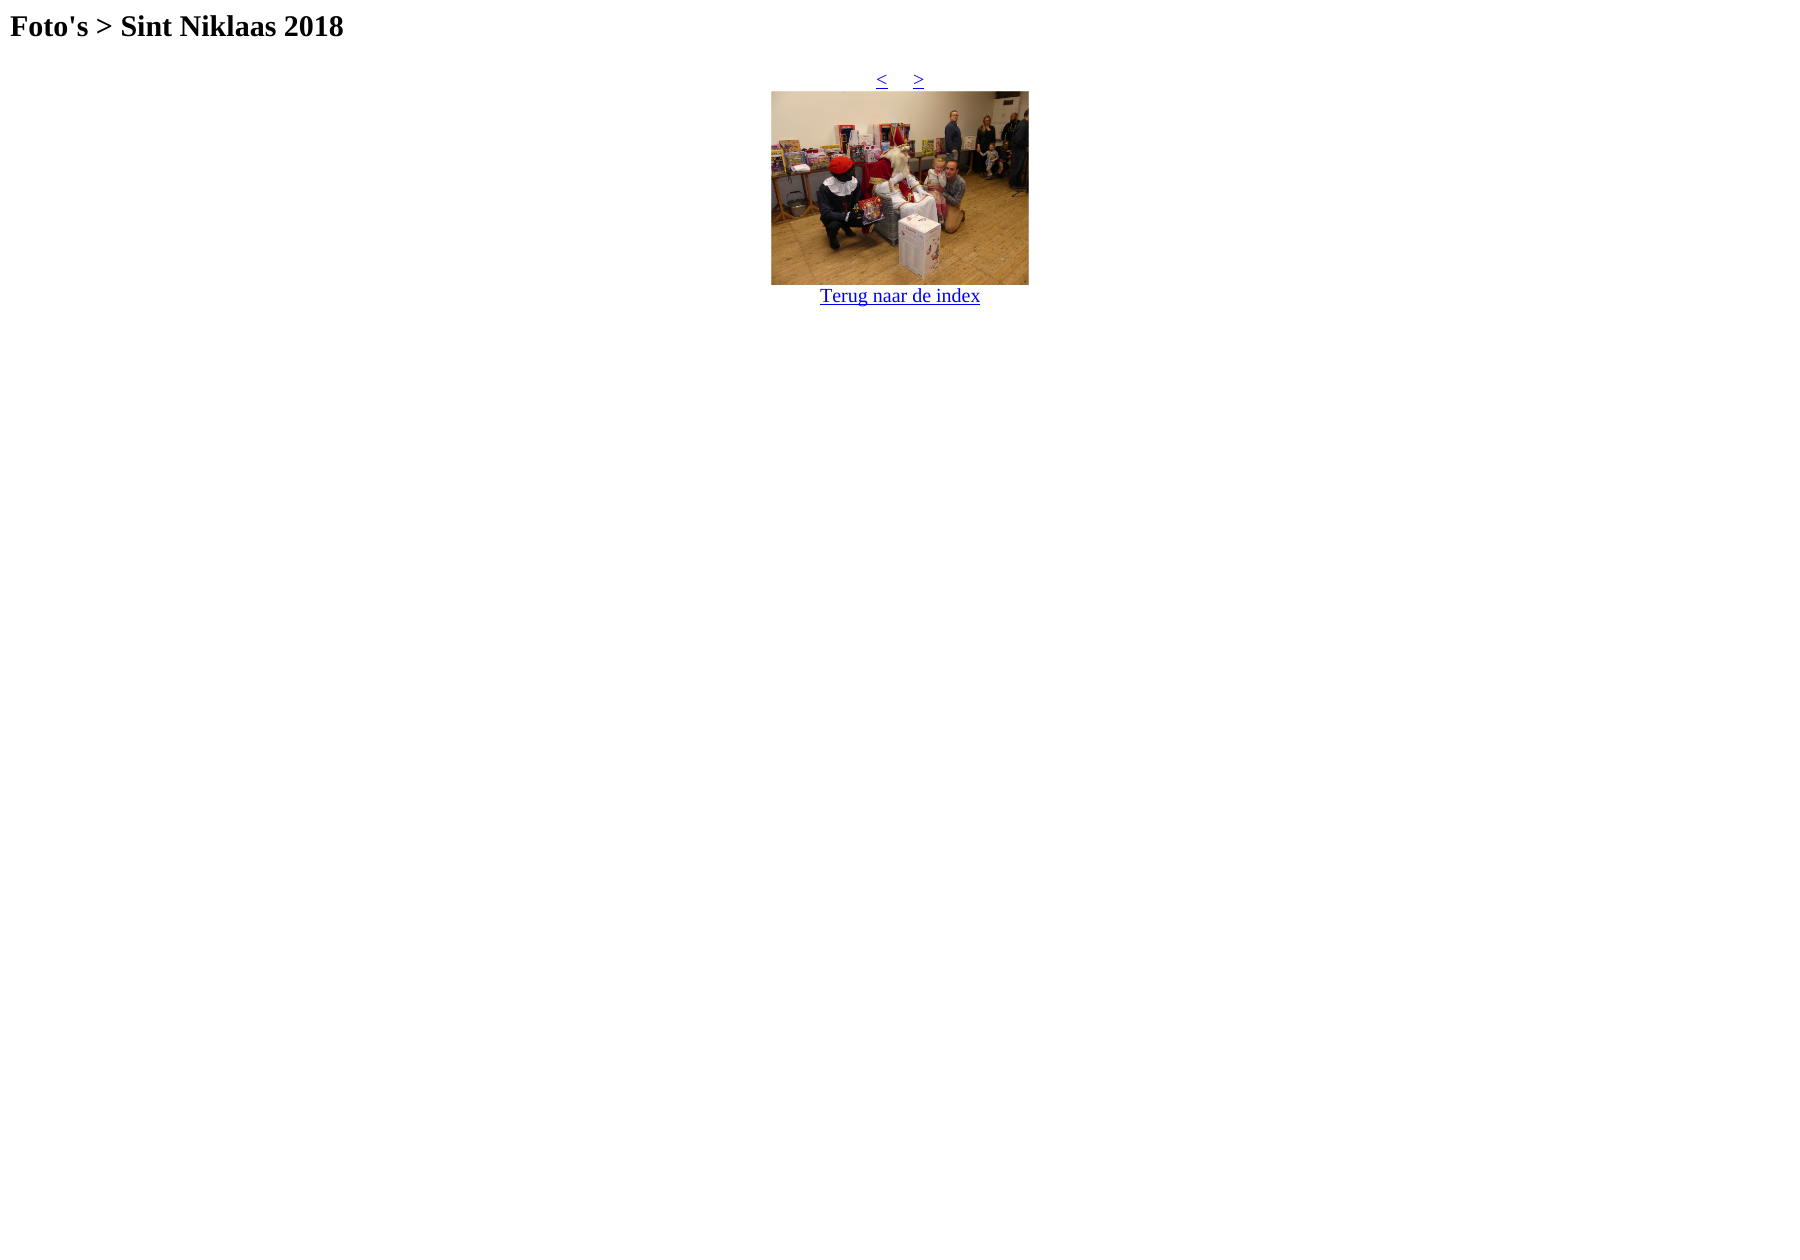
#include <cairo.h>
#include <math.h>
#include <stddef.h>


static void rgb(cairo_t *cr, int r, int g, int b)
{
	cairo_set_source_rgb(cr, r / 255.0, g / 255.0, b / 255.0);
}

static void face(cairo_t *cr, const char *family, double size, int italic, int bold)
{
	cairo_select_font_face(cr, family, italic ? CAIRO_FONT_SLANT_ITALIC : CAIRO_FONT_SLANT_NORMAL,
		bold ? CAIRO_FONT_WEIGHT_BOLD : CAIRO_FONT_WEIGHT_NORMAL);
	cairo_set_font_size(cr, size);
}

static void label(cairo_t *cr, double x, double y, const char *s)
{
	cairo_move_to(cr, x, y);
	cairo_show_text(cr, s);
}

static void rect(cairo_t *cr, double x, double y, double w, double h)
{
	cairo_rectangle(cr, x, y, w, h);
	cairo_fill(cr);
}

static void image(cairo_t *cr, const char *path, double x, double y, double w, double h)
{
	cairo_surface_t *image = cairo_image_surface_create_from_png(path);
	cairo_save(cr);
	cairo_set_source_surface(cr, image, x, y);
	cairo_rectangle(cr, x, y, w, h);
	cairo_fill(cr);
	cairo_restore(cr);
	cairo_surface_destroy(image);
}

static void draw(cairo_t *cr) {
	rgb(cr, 255, 255, 255);
	cairo_paint(cr);
	face(cr, "Liberation Serif", 30, 0, 1);
	rgb(cr, 0, 0, 0);
	label(cr, 10, 36, "Foto's > Sint Niklaas 2018");
	face(cr, "Liberation Serif", 20, 0, 0);
	rgb(cr, 0, 0, 238);
	label(cr, 876, 86, "<");
	rect(cr, 876, 88, 12, 1);
	label(cr, 913, 86, ">");
	rect(cr, 913, 88, 11, 1);
	image(cr, "image0.png", 771, 91, 258, 194);
	rect(cr, 820, 304, 160, 1);
	label(cr, 820, 302, "Terug naar de index");
}

int main(void) {
	cairo_surface_t *surface = cairo_image_surface_create(CAIRO_FORMAT_RGB24, 1800, 1260);
	cairo_t *cr = cairo_create(surface);
	cairo_font_options_t *options = cairo_font_options_create();
	cairo_font_options_set_hint_metrics(options, CAIRO_HINT_METRICS_OFF);
	cairo_font_options_set_hint_style(options, CAIRO_HINT_STYLE_NONE);
	cairo_set_font_options(cr, options);
	cairo_set_miter_limit(cr, 4);
	draw(cr);
	cairo_surface_write_to_png(surface, "render.png");
	cairo_font_options_destroy(options);
	cairo_destroy(cr);
	cairo_surface_destroy(surface);
	return 0;
}
